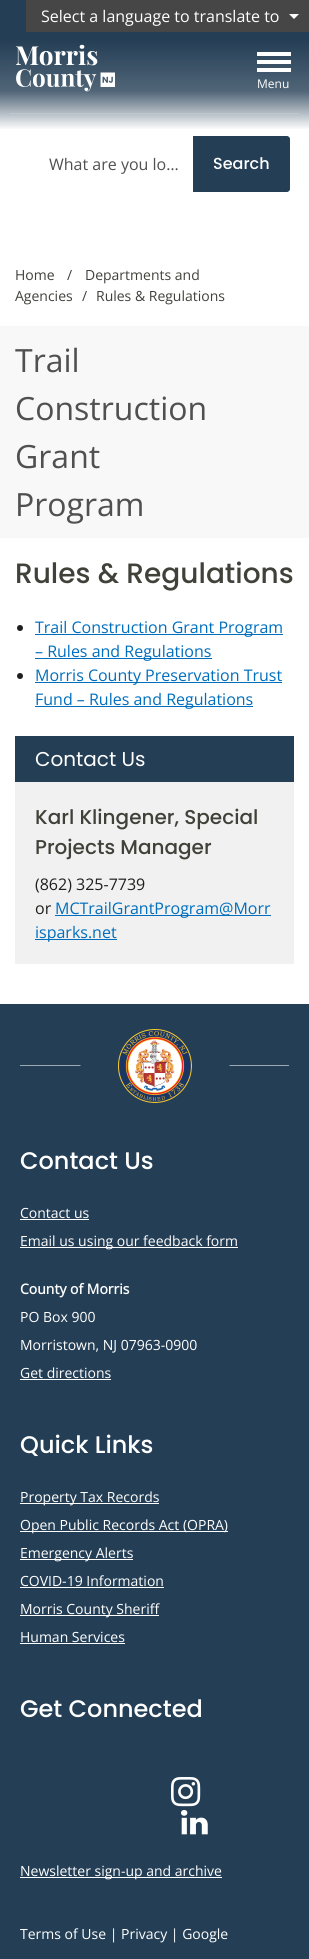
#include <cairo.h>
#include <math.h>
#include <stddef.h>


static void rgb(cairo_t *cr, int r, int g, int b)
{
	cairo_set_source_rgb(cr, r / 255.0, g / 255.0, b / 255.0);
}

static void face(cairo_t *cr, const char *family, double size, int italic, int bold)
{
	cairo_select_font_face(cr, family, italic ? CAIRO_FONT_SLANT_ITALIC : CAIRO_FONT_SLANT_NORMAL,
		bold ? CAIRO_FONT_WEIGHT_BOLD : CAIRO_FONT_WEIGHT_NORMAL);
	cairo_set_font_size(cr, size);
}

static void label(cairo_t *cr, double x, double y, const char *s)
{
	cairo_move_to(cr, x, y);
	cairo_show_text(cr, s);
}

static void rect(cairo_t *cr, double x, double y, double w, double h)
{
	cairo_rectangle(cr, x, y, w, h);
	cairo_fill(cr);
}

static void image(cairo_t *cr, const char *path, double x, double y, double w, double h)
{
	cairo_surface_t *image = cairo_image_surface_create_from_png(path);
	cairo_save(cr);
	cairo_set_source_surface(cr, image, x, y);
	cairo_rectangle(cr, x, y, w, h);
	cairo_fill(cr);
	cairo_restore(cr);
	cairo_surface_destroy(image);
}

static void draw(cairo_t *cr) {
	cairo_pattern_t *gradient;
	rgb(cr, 255, 255, 255);
	cairo_paint(cr);
	gradient = cairo_pattern_create_linear(155, 0, 155, 130);
	cairo_pattern_add_color_stop_rgba(gradient, 0.3, 0.141, 0.243, 0.333, 1);
	cairo_pattern_add_color_stop_rgba(gradient, 0.7, 0.141, 0.243, 0.333, 0.8);
	cairo_pattern_add_color_stop_rgba(gradient, 1, 0.141, 0.243, 0.333, 0);
	cairo_set_source(cr, gradient);
	cairo_pattern_destroy(gradient);
	rect(cr, 0, 0, 309, 129);
	rgb(cr, 70, 70, 70);
	rect(cr, 26, 0, 283, 32);
	face(cr, "Open Sans", 16, 0, 0);
	rgb(cr, 255, 255, 255);
	label(cr, 41, 22, "Select a language to translate to");
	cairo_new_path(cr);
	cairo_move_to(cr, 289, 14);
	cairo_line_to(cr, 299, 14);
	cairo_line_to(cr, 294, 19);
	cairo_close_path(cr);
	cairo_fill(cr);
	image(cr, "image0.png", 15, 44, 100, 48);
	rect(cr, 257, 60, 34, 4);
	rect(cr, 257, 52, 34, 4);
	rect(cr, 257, 68, 34, 4);
	face(cr, "Open Sans", 12, 0, 0);
	label(cr, 257, 88, "Menu");
	rgb(cr, 192, 200, 207);
	rect(cr, 10, 113, 289, 1);
	face(cr, "Open Sans", 16, 0, 0);
	rgb(cr, 80, 80, 80);
	label(cr, 49, 170, "What are you lo…");
	rgb(cr, 36, 62, 85);
	cairo_new_path(cr);
	cairo_move_to(cr, 192, 135);
	cairo_line_to(cr, 287, 135);
	cairo_curve_to(cr, 289, 135, 291, 137, 291, 139);
	cairo_line_to(cr, 291, 189);
	cairo_curve_to(cr, 291, 191, 289, 193, 287, 193);
	cairo_line_to(cr, 192, 193);
	cairo_close_path(cr);
	cairo_fill_preserve(cr);
	rgb(cr, 255, 255, 255);
	cairo_stroke(cr);
	face(cr, "Poppins Medium", 16, 0, 0);
	label(cr, 213, 169, "Search");
	face(cr, "Open Sans", 14, 0, 0);
	rgb(cr, 64, 65, 57);
	label(cr, 15, 280, "Home");
	label(cr, 67, 280, "/");
	label(cr, 85, 280, "Departments and");
	label(cr, 15, 301, "Agencies");
	label(cr, 82, 301, "/");
	label(cr, 96, 301, "Rules & Regulations");
	rgb(cr, 248, 248, 248);
	rect(cr, 0, 326, 309, 212);
	face(cr, "Open Sans", 32, 0, 0);
	rgb(cr, 80, 80, 80);
	label(cr, 15, 372, "Trail");
	label(cr, 15, 420, "Construction");
	label(cr, 15, 468, "Grant");
	label(cr, 15, 516, "Program");
	face(cr, "Poppins Medium", 28, 0, 0);
	rgb(cr, 64, 65, 57);
	label(cr, 15, 583, "Rules & Regulations");
	rgb(cr, 31, 32, 29);
	cairo_new_path(cr);
	cairo_arc(cr, 20, 628, 3, 0, 2 * M_PI);
	cairo_fill(cr);
	rgb(cr, 0, 110, 189);
	rect(cr, 35, 634, 248, 1);
	face(cr, "Open Sans", 16, 0, 0);
	label(cr, 35, 633, "Trail Construction Grant Program");
	rect(cr, 35, 658, 177, 1);
	label(cr, 35, 657, "– Rules and Regulations");
	rgb(cr, 31, 32, 29);
	cairo_new_path(cr);
	cairo_arc(cr, 20, 676, 3, 0, 2 * M_PI);
	cairo_fill(cr);
	rgb(cr, 0, 110, 189);
	rect(cr, 35, 682, 247, 1);
	label(cr, 35, 681, "Morris County Preservation Trust");
	rect(cr, 35, 706, 218, 1);
	label(cr, 35, 705, "Fund – Rules and Regulations");
	rgb(cr, 241, 241, 241);
	rect(cr, 15, 782, 279, 182);
	rgb(cr, 36, 62, 85);
	rect(cr, 15, 736, 279, 46);
	face(cr, "Poppins", 20, 0, 0);
	rgb(cr, 255, 255, 255);
	label(cr, 35, 766, "Contact Us");
	face(cr, "Poppins Medium", 20, 0, 0);
	rgb(cr, 64, 65, 57);
	label(cr, 35, 824, "Karl Klingener, Special");
	label(cr, 35, 854, "Projects Manager");
	face(cr, "Open Sans", 16, 0, 0);
	rgb(cr, 31, 32, 29);
	label(cr, 35, 890, "(862) 325-7739");
	label(cr, 35, 914, "or");
	rgb(cr, 0, 110, 189);
	rect(cr, 55, 915, 216, 1);
	label(cr, 55, 914, "MCTrailGrantProgram@Morr");
	rect(cr, 35, 939, 82, 1);
	label(cr, 35, 938, "isparks.net");
	rgb(cr, 36, 62, 85);
	rect(cr, 0, 1004, 309, 955);
	image(cr, "image1.png", 20, 1065, 269, 1);
	image(cr, "image2.png", 118, 1029, 74, 74);
	face(cr, "Poppins Medium", 24, 0, 0);
	rgb(cr, 255, 255, 255);
	label(cr, 20, 1169, "Contact Us");
	face(cr, "Open Sans", 14, 0, 0);
	label(cr, 20, 1218, "Contact us");
	rect(cr, 20, 1219, 69, 1);
	rect(cr, 20, 1247, 218, 1);
	label(cr, 20, 1246, "Email us using our feedback form");
	face(cr, "Open Sans", 14, 0, 1);
	label(cr, 20, 1294, "County of Morris");
	face(cr, "Open Sans", 14, 0, 0);
	label(cr, 20, 1322, "PO Box 900");
	label(cr, 20, 1350, "Morristown, NJ 07963-0900");
	label(cr, 20, 1378, "Get directions");
	rect(cr, 20, 1379, 91, 1);
	face(cr, "Poppins Medium", 24, 0, 0);
	label(cr, 20, 1453, "Quick Links");
	rect(cr, 20, 1503, 139, 1);
	face(cr, "Open Sans", 14, 0, 0);
	label(cr, 20, 1502, "Property Tax Records");
	rect(cr, 20, 1531, 208, 1);
	label(cr, 20, 1530, "Open Public Records Act (OPRA)");
	rect(cr, 20, 1559, 113, 1);
	label(cr, 20, 1558, "Emergency Alerts");
	label(cr, 20, 1586, "COVID-19 Information");
	rect(cr, 20, 1587, 144, 1);
	rect(cr, 20, 1615, 139, 1);
	label(cr, 20, 1614, "Morris County Sheriff");
	label(cr, 20, 1642, "Human Services");
	rect(cr, 20, 1643, 105, 1);
	face(cr, "Poppins Medium", 24, 0, 0);
	label(cr, 20, 1717, "Get Connected");
	image(cr, "image3.png", 171, 1777, 30, 30);
	image(cr, "image4.png", 181, 1810, 27, 25);
	rect(cr, 20, 1877, 202, 1);
	face(cr, "Open Sans", 14, 0, 0);
	label(cr, 20, 1876, "Newsletter sign-up and archive");
	label(cr, 20, 1939, "Terms of Use | Privacy | Google");
}

int main(void) {
	cairo_surface_t *surface = cairo_image_surface_create(CAIRO_FORMAT_RGB24, 309, 1959);
	cairo_t *cr = cairo_create(surface);
	cairo_font_options_t *options = cairo_font_options_create();
	cairo_font_options_set_hint_metrics(options, CAIRO_HINT_METRICS_OFF);
	cairo_font_options_set_hint_style(options, CAIRO_HINT_STYLE_NONE);
	cairo_set_font_options(cr, options);
	cairo_set_miter_limit(cr, 4);
	draw(cr);
	cairo_surface_write_to_png(surface, "render.png");
	cairo_font_options_destroy(options);
	cairo_destroy(cr);
	cairo_surface_destroy(surface);
	return 0;
}
